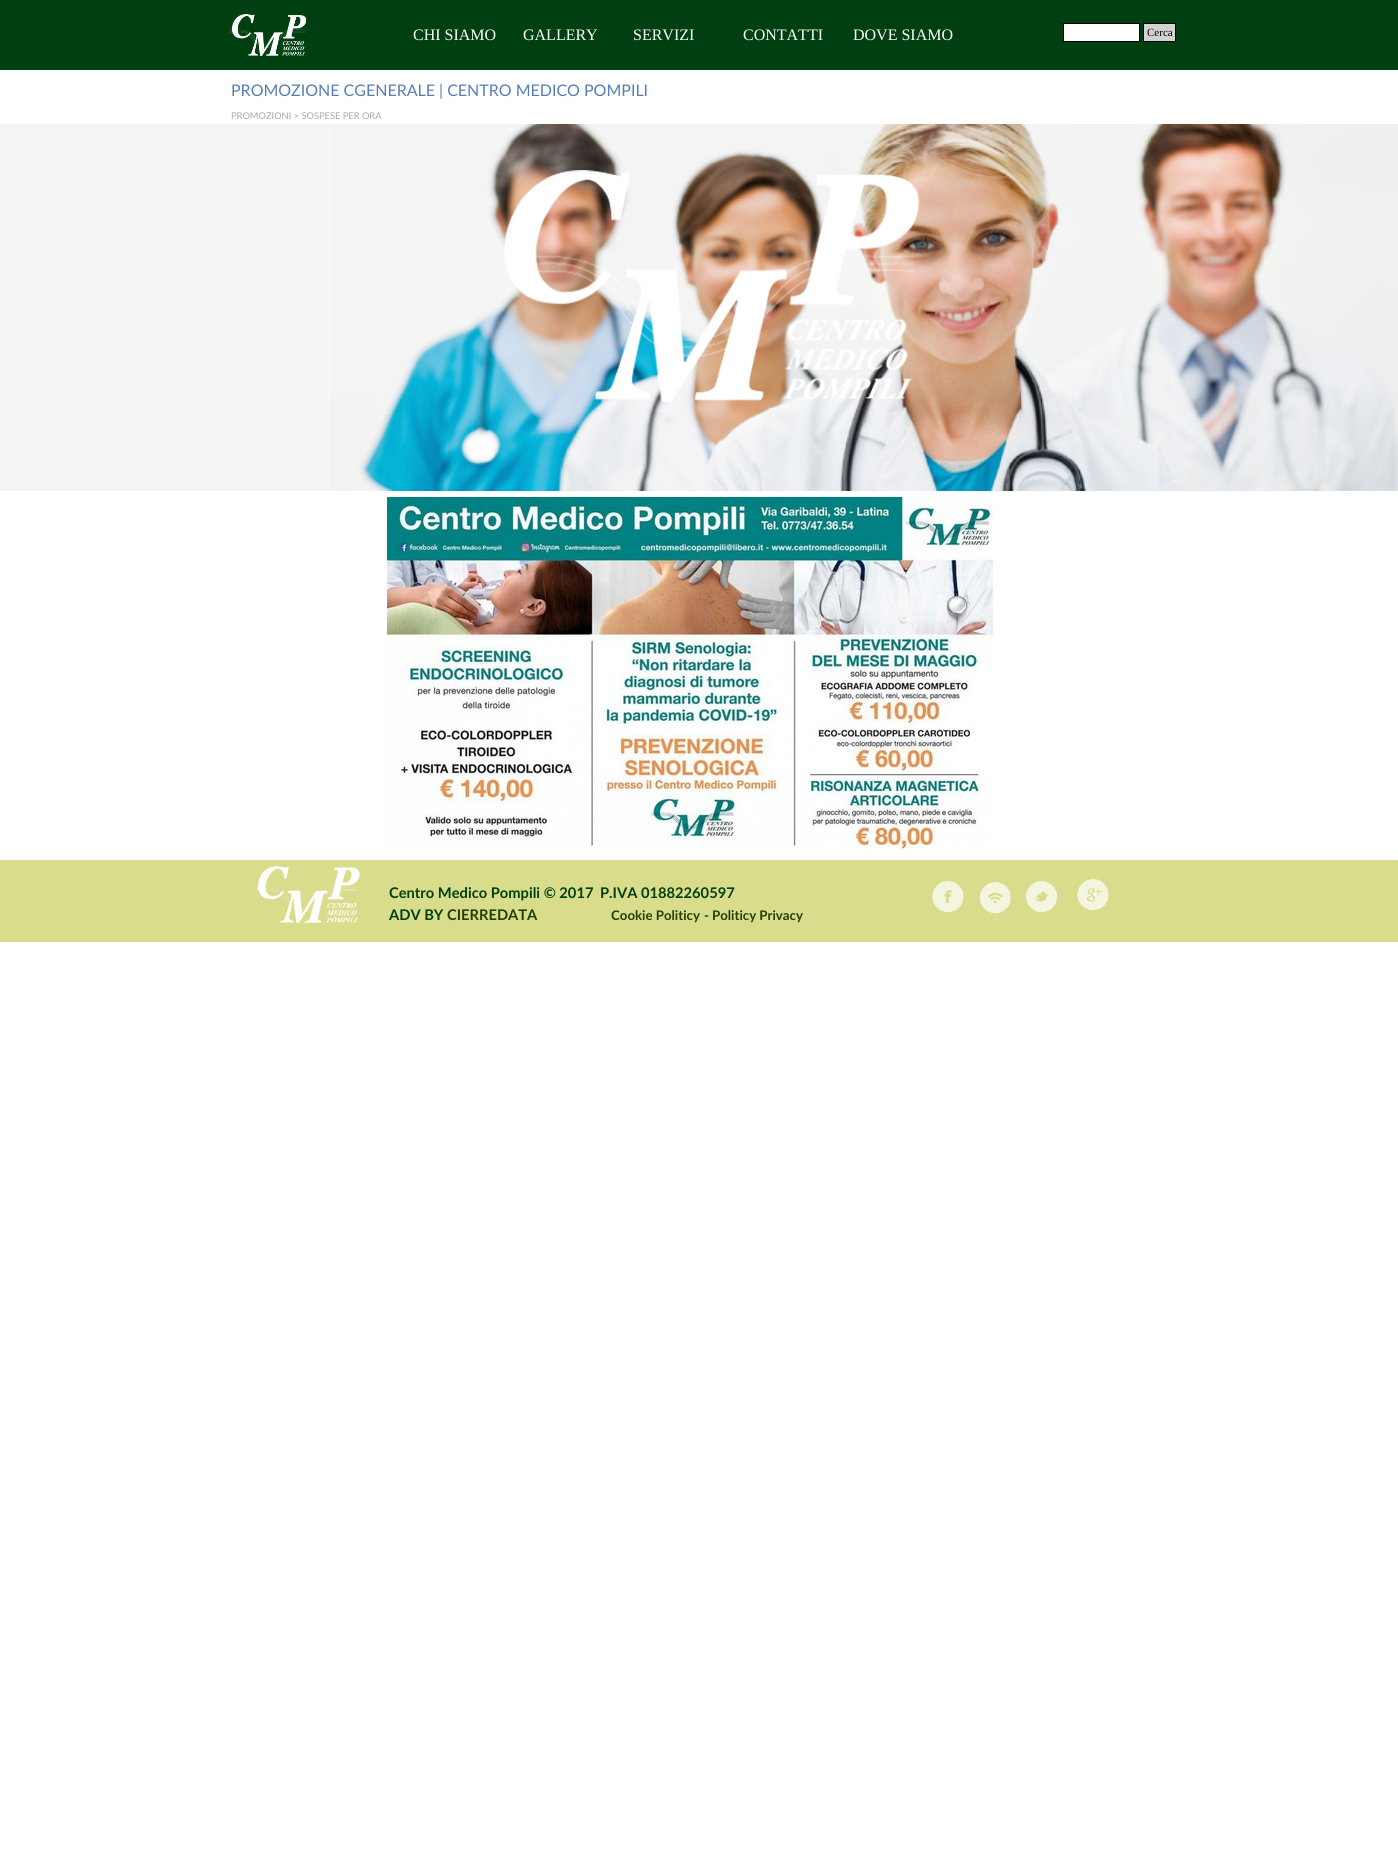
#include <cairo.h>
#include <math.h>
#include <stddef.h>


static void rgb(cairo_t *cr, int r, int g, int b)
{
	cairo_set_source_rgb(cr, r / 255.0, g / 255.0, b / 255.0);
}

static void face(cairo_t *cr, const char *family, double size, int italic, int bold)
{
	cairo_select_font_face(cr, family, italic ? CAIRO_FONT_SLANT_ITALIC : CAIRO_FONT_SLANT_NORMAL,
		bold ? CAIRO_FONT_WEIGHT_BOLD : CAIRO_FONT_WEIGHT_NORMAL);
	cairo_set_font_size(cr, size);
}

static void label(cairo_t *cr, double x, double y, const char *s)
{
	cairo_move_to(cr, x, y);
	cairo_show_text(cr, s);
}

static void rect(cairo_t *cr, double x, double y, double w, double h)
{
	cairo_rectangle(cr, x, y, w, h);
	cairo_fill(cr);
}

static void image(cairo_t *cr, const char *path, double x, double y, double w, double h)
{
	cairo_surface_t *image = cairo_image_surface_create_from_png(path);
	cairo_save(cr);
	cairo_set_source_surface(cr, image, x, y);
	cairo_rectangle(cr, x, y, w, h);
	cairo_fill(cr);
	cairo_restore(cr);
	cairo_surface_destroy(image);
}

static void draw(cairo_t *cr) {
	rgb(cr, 255, 255, 255);
	cairo_paint(cr);
	rgb(cr, 0, 64, 16);
	rect(cr, 0, 0, 1398, 70);
	image(cr, "image0.png", 229, 14, 77, 42);
	face(cr, "Liberation Serif", 16, 0, 0);
	rgb(cr, 255, 255, 255);
	label(cr, 413, 40, "CHI SIAMO");
	label(cr, 523, 40, "GALLERY");
	label(cr, 633, 40, "SERVIZI");
	label(cr, 743, 40, "CONTATTI");
	label(cr, 853, 40, "DOVE SIAMO");
	cairo_rectangle(cr, 1063.5, 23.5, 76, 18);
	cairo_fill_preserve(cr);
	rgb(cr, 0, 0, 0);
	cairo_set_line_width(cr, 1);
	cairo_stroke(cr);
	rgb(cr, 211, 211, 211);
	cairo_rectangle(cr, 1143.5, 23.5, 32, 18);
	cairo_fill_preserve(cr);
	rgb(cr, 0, 0, 0);
	cairo_stroke(cr);
	face(cr, "Liberation Serif", 11, 0, 0);
	label(cr, 1147, 36, "Cerca");
	face(cr, "Lato", 16, 0, 0);
	rgb(cr, 86, 126, 182);
	label(cr, 231, 96, "PROMOZIONE CGENERALE | CENTRO MEDICO POMPILI");
	face(cr, "Lato", 9.3, 0, 0);
	rgb(cr, 169, 169, 169);
	label(cr, 231, 119, "PROMOZIONI > SOSPESE PER ORA");
	image(cr, "image1.png", 0, 124, 1398, 367);
	image(cr, "image2.png", 504, 170, 416, 232);
	image(cr, "image3.png", 387, 497, 606, 352);
	rgb(cr, 217, 220, 139);
	rect(cr, 0, 860, 1398, 82);
	image(cr, "image4.png", 254, 866, 106, 57);
	face(cr, "Lato", 14.7, 0, 1);
	rgb(cr, 0, 64, 16);
	label(cr, 389, 898, "Centro Medico Pompili © 2017");
	label(cr, 600, 898, "P.IVA 01882260597");
	label(cr, 389, 920, "ADV BY");
	rgb(cr, 32, 64, 0);
	label(cr, 447, 920, "CIERREDATA");
	face(cr, "Lato", 13.25, 0, 1);
	label(cr, 611, 920, "Cookie Politicy");
	rgb(cr, 0, 64, 64);
	label(cr, 704, 920, "-");
	rgb(cr, 32, 64, 0);
	label(cr, 712, 920, "Politicy Privacy");
	image(cr, "image5.png", 932, 881, 32, 32);
	image(cr, "image6.png", 979, 882, 32, 32);
	image(cr, "image7.png", 1026, 881, 32, 32);
	image(cr, "image8.png", 1077, 879, 32, 32);
}

int main(void) {
	cairo_surface_t *surface = cairo_image_surface_create(CAIRO_FORMAT_RGB24, 1398, 1864);
	cairo_t *cr = cairo_create(surface);
	cairo_font_options_t *options = cairo_font_options_create();
	cairo_font_options_set_hint_metrics(options, CAIRO_HINT_METRICS_OFF);
	cairo_font_options_set_hint_style(options, CAIRO_HINT_STYLE_NONE);
	cairo_set_font_options(cr, options);
	cairo_set_miter_limit(cr, 4);
	draw(cr);
	cairo_surface_write_to_png(surface, "render.png");
	cairo_font_options_destroy(options);
	cairo_destroy(cr);
	cairo_surface_destroy(surface);
	return 0;
}
